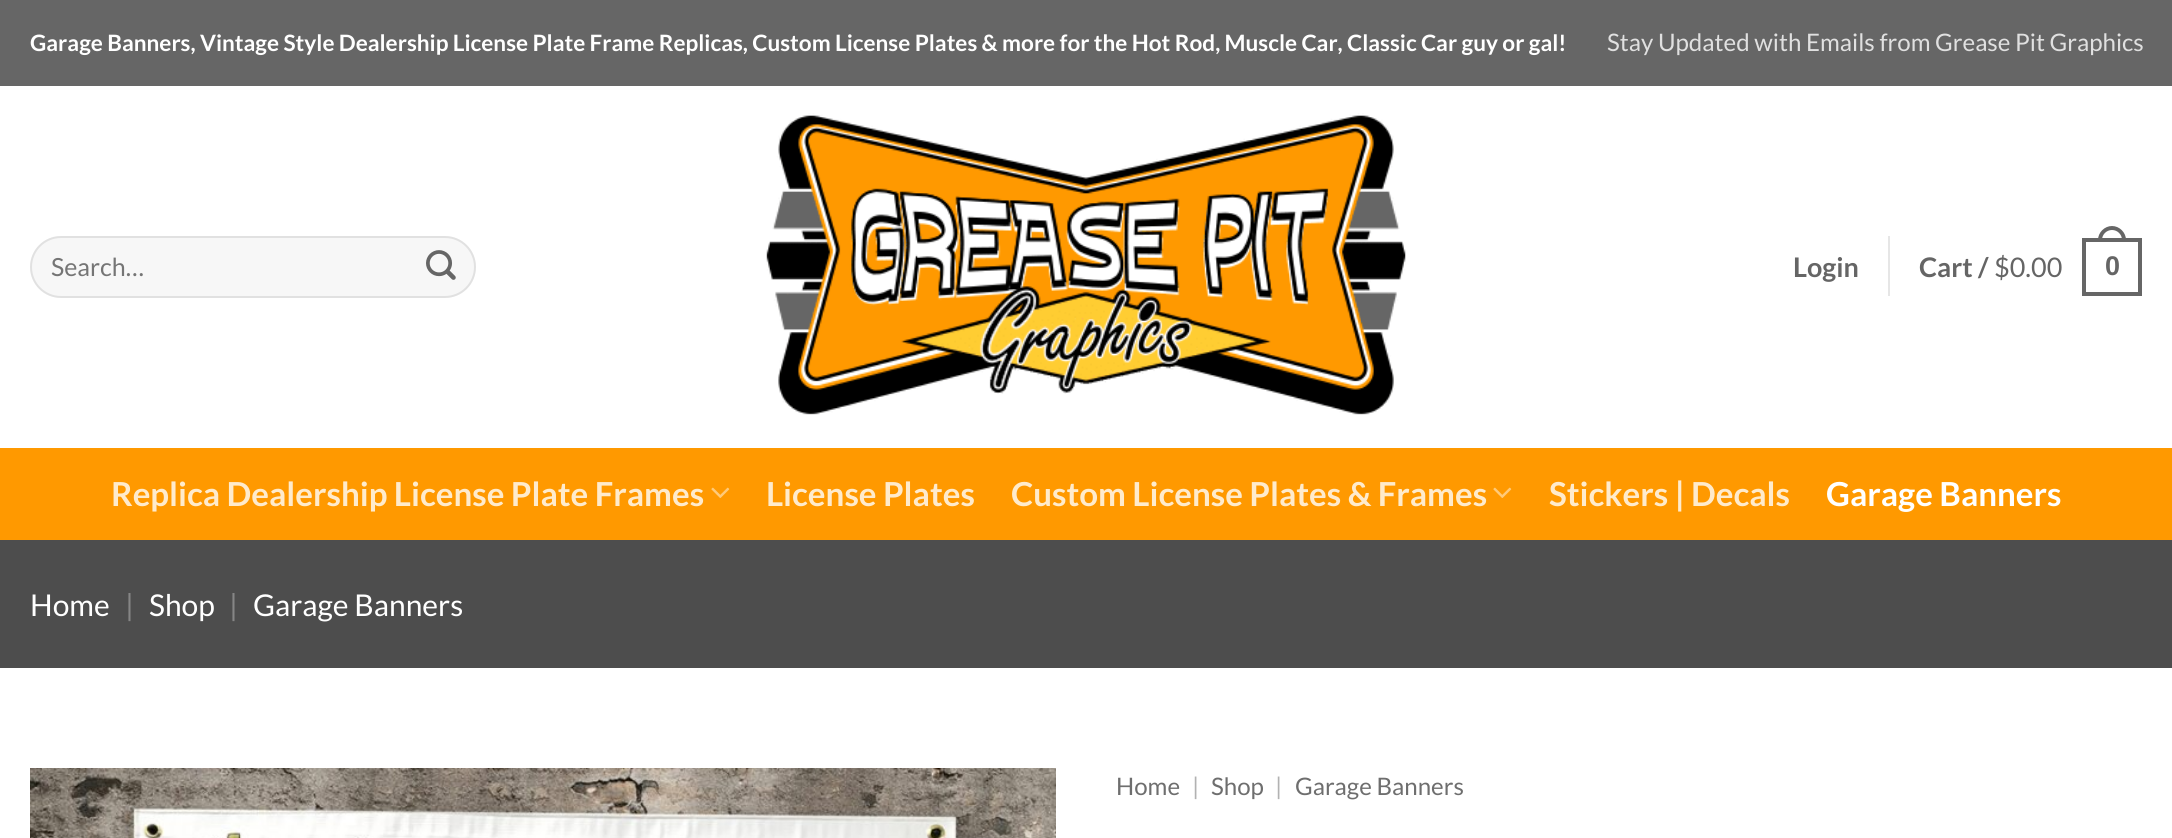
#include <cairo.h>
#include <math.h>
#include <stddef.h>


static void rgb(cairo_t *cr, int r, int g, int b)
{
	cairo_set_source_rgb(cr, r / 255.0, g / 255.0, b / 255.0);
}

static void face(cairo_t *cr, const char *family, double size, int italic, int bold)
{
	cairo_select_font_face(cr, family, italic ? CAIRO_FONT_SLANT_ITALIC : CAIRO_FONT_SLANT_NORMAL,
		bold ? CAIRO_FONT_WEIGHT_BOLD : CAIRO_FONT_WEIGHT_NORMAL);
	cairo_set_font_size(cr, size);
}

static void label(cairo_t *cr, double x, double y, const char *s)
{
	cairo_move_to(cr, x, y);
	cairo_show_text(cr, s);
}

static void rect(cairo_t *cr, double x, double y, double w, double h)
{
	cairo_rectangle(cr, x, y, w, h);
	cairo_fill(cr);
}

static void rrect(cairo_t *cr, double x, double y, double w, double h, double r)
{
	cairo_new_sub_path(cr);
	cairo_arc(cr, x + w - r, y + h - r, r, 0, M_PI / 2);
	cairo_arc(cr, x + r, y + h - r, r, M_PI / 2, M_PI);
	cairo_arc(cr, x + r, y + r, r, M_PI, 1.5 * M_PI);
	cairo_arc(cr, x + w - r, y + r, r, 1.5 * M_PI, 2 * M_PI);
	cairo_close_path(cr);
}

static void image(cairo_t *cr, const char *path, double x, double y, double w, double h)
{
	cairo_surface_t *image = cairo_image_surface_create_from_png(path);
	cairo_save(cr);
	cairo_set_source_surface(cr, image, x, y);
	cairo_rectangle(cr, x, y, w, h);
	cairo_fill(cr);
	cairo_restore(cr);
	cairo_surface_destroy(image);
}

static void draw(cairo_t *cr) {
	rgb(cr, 255, 255, 255);
	cairo_paint(cr);
	rgb(cr, 102, 102, 102);
	rect(cr, 0, 0, 2172, 86);
	face(cr, "Lato", 22.55, 0, 1);
	rgb(cr, 255, 255, 255);
	label(cr, 30, 51, "Garage Banners, Vintage Style Dealership License Plate Frame Replicas, Custom License Plates & more for the Hot Rod, Muscle Car, Classic Car guy or gal!");
	face(cr, "Lato", 24.1, 0, 0);
	rgb(cr, 224, 224, 224);
	label(cr, 1607, 51, "Stay Updated with Emails from Grease Pit Graphics");
	rgb(cr, 247, 247, 247);
	rrect(cr, 30, 236, 446, 62, 31);
	cairo_fill(cr);
	rrect(cr, 31, 237, 444, 60, 30);
	cairo_set_source_rgba(cr, 0, 0, 0, 0.09);
	cairo_stroke(cr);
	face(cr, "Lato", 25, 0, 0);
	rgb(cr, 117, 117, 117);
	label(cr, 51, 276, "Search…");
	image(cr, "image0.png", 426, 250, 30, 30);
	image(cr, "image1.png", 766, 113, 640, 302);
	face(cr, "Lato", 27, 0, 1);
	rgb(cr, 101, 101, 101);
	label(cr, 1793, 277, "Login");
	rgb(cr, 230, 230, 230);
	rect(cr, 1888, 236, 2, 60);
	rgb(cr, 101, 101, 101);
	label(cr, 1919, 277, "Cart /");
	face(cr, "Lato", 27, 0, 0);
	label(cr, 1994, 277, "$0.00");
	cairo_rectangle(cr, 2084, 240, 56, 54);
	rgb(cr, 102, 102, 102);
	cairo_set_line_width(cr, 4);
	cairo_stroke(cr);
	cairo_set_fill_rule(cr, CAIRO_FILL_RULE_EVEN_ODD);
	cairo_new_path(cr);
	cairo_move_to(cr, 2112, 226);
	cairo_curve_to(cr, 2119.5, 226, 2126, 232.5, 2126, 240);
	cairo_line_to(cr, 2126, 242);
	cairo_line_to(cr, 2098, 242);
	cairo_line_to(cr, 2098, 240);
	cairo_curve_to(cr, 2098, 232.5, 2104.5, 226, 2112, 226);
	cairo_close_path(cr);
	cairo_move_to(cr, 2112, 230);
	cairo_curve_to(cr, 2117.5, 230, 2122, 234.5, 2122, 240);
	cairo_line_to(cr, 2122, 242);
	cairo_line_to(cr, 2102, 242);
	cairo_line_to(cr, 2102, 240);
	cairo_curve_to(cr, 2102, 234.5, 2106.5, 230, 2112, 230);
	cairo_close_path(cr);
	cairo_fill(cr);
	face(cr, "Liberation Sans", 27, 0, 1);
	rgb(cr, 101, 101, 101);
	label(cr, 2105, 275, "0");
	rgb(cr, 255, 153, 0);
	rect(cr, 0, 448, 2172, 92);
	face(cr, "Lato", 33.1, 0, 1);
	rgb(cr, 255, 235, 204);
	label(cr, 111, 506, "Replica Dealership License Plate Frames");
	image(cr, "image2.png", 711, 487, 19, 11);
	label(cr, 766, 506, "License Plates");
	label(cr, 1011, 506, "Custom License Plates & Frames");
	image(cr, "image2.png", 1493, 487, 19, 11);
	label(cr, 1549, 506, "Stickers | Decals");
	rgb(cr, 255, 255, 255);
	label(cr, 1826, 506, "Garage Banners");
	rgb(cr, 77, 77, 77);
	rect(cr, 0, 540, 2172, 128);
	face(cr, "Lato", 30, 0, 0);
	rgb(cr, 255, 255, 255);
	label(cr, 30, 616, "Home");
	rgb(cr, 134, 134, 134);
	label(cr, 125, 616, "|");
	rgb(cr, 255, 255, 255);
	label(cr, 149, 616, "Shop");
	rgb(cr, 134, 134, 134);
	label(cr, 229, 616, "|");
	rgb(cr, 255, 255, 255);
	label(cr, 253, 616, "Garage Banners");
	image(cr, "image3.png", 30, 768, 1026, 70);
	face(cr, "Lato", 24.1, 0, 0);
	rgb(cr, 110, 110, 110);
	label(cr, 1116, 795, "Home");
	rgb(cr, 178, 178, 178);
	label(cr, 1192, 795, "|");
	rgb(cr, 110, 110, 110);
	label(cr, 1211, 795, "Shop");
	rgb(cr, 178, 178, 178);
	label(cr, 1275, 795, "|");
	rgb(cr, 110, 110, 110);
	label(cr, 1295, 795, "Garage Banners");
}

int main(void) {
	cairo_surface_t *surface = cairo_image_surface_create(CAIRO_FORMAT_RGB24, 2172, 838);
	cairo_t *cr = cairo_create(surface);
	cairo_font_options_t *options = cairo_font_options_create();
	cairo_font_options_set_hint_metrics(options, CAIRO_HINT_METRICS_OFF);
	cairo_font_options_set_hint_style(options, CAIRO_HINT_STYLE_NONE);
	cairo_set_font_options(cr, options);
	cairo_set_miter_limit(cr, 4);
	draw(cr);
	cairo_surface_write_to_png(surface, "render.png");
	cairo_font_options_destroy(options);
	cairo_destroy(cr);
	cairo_surface_destroy(surface);
	return 0;
}
